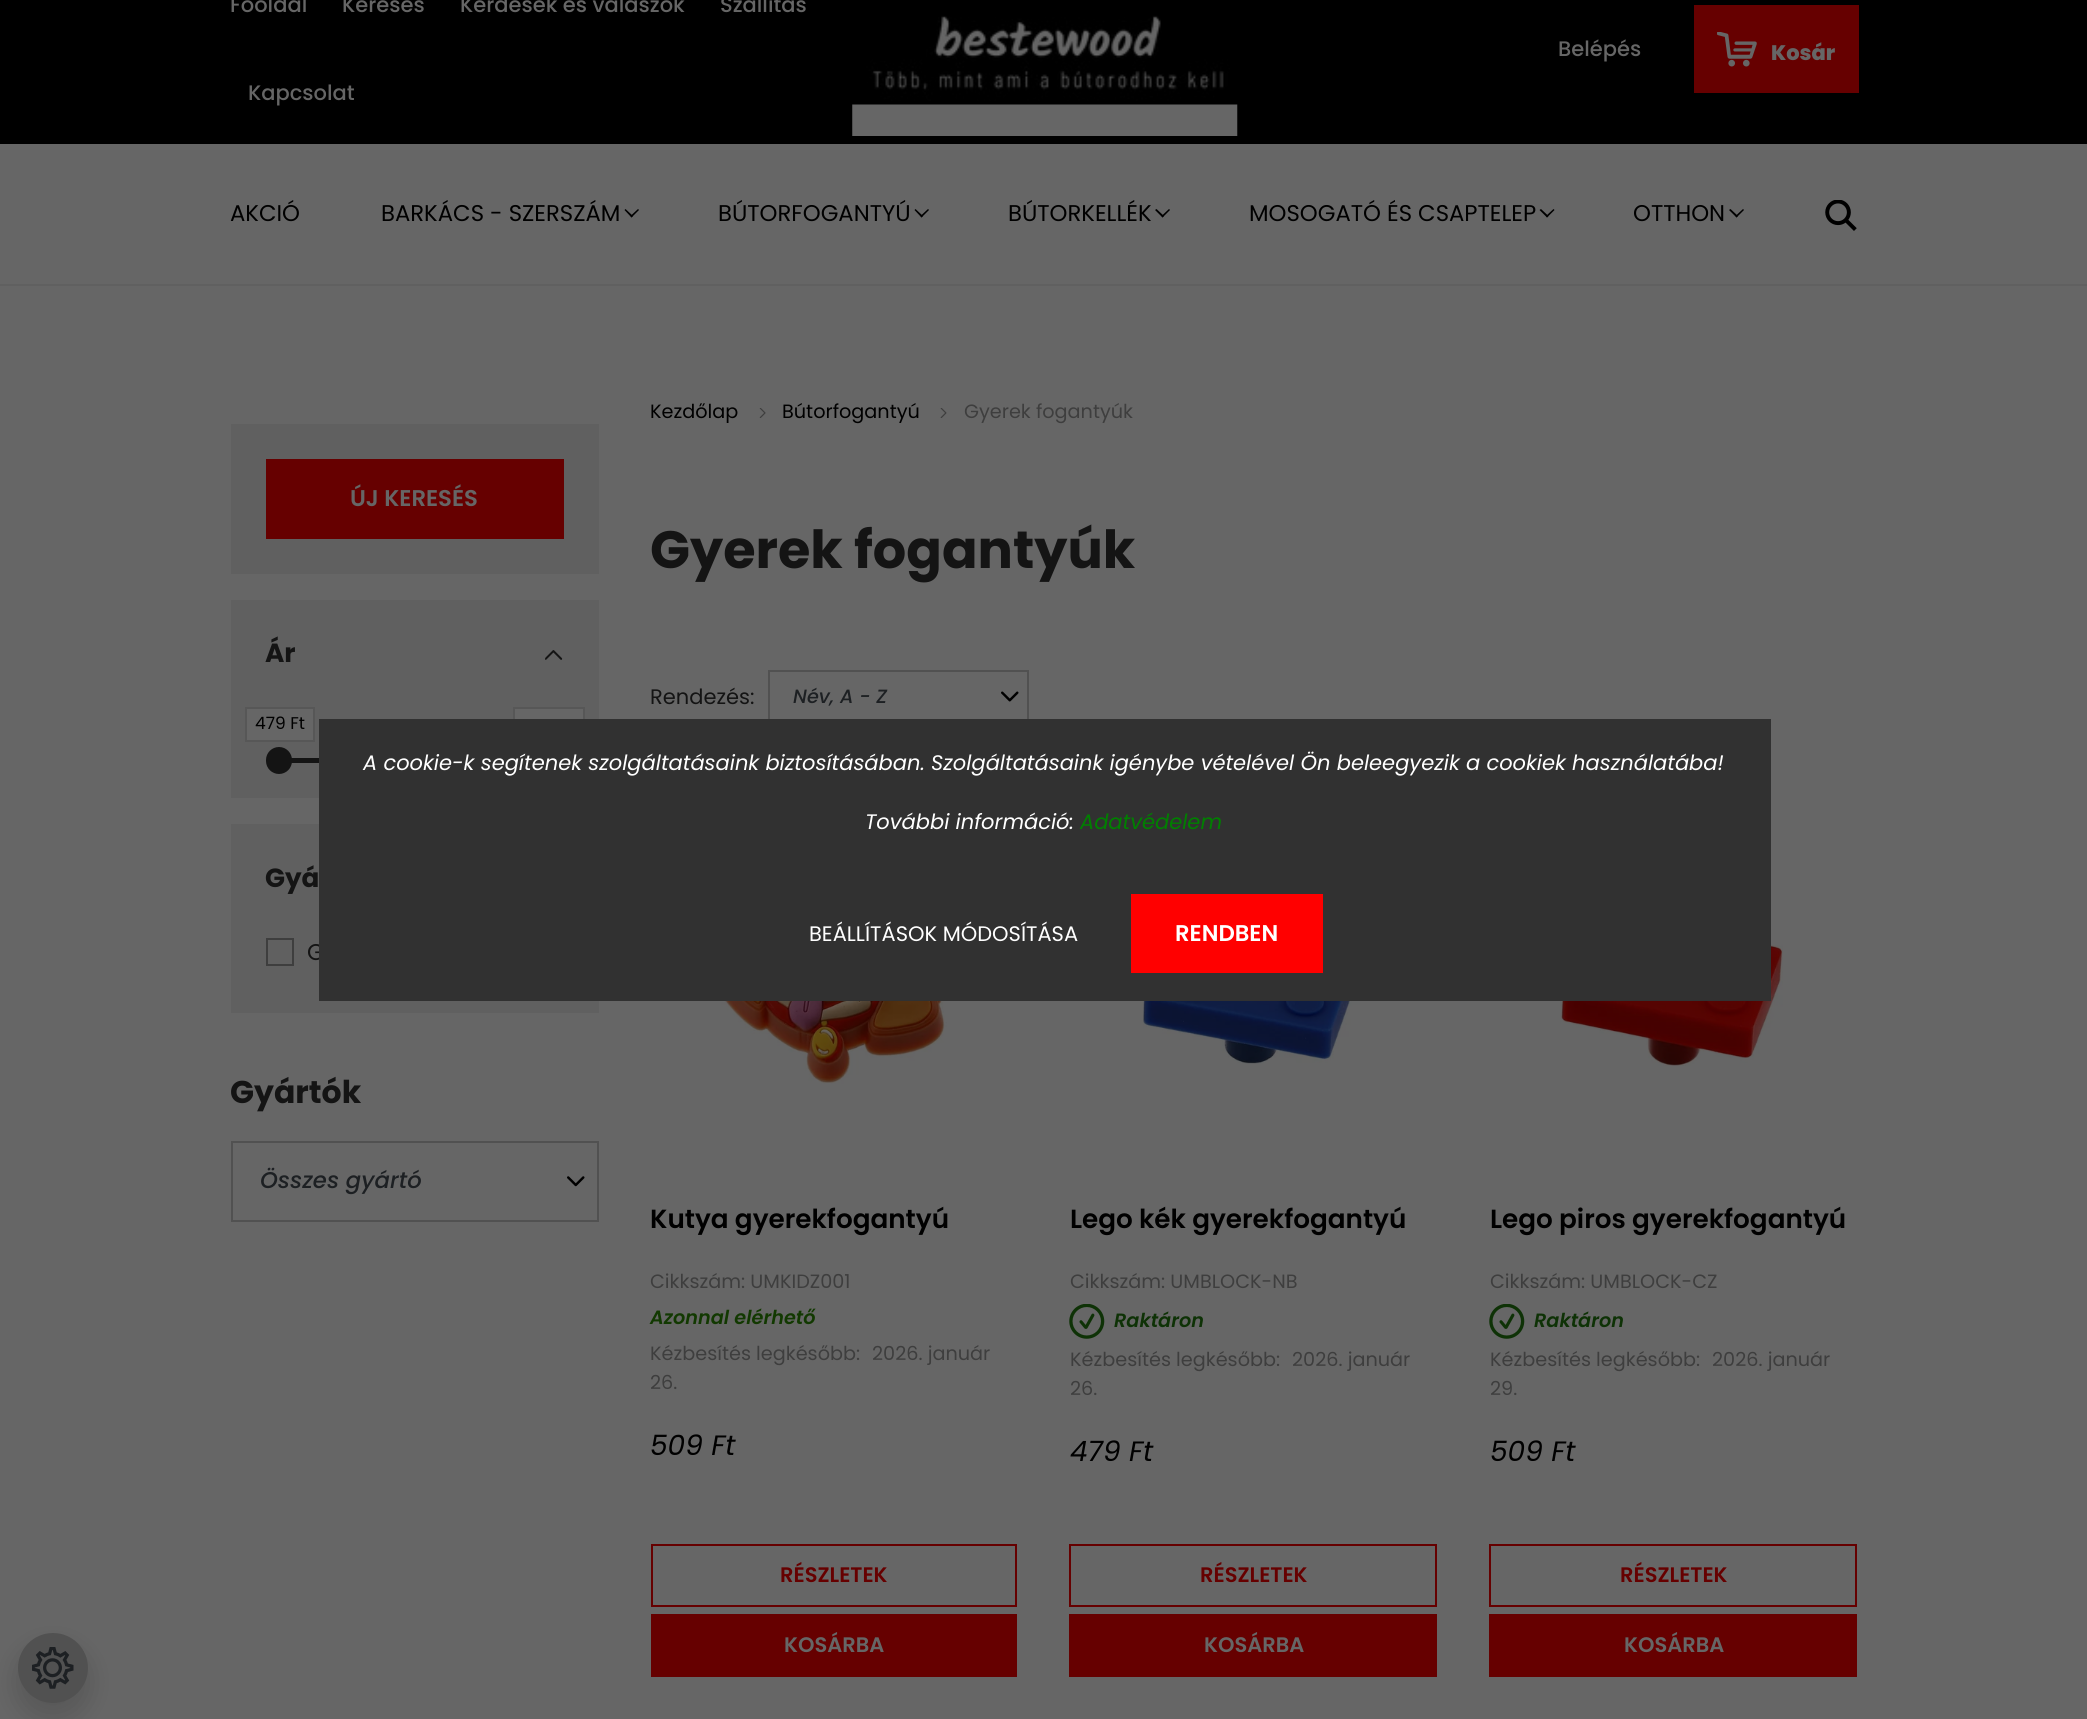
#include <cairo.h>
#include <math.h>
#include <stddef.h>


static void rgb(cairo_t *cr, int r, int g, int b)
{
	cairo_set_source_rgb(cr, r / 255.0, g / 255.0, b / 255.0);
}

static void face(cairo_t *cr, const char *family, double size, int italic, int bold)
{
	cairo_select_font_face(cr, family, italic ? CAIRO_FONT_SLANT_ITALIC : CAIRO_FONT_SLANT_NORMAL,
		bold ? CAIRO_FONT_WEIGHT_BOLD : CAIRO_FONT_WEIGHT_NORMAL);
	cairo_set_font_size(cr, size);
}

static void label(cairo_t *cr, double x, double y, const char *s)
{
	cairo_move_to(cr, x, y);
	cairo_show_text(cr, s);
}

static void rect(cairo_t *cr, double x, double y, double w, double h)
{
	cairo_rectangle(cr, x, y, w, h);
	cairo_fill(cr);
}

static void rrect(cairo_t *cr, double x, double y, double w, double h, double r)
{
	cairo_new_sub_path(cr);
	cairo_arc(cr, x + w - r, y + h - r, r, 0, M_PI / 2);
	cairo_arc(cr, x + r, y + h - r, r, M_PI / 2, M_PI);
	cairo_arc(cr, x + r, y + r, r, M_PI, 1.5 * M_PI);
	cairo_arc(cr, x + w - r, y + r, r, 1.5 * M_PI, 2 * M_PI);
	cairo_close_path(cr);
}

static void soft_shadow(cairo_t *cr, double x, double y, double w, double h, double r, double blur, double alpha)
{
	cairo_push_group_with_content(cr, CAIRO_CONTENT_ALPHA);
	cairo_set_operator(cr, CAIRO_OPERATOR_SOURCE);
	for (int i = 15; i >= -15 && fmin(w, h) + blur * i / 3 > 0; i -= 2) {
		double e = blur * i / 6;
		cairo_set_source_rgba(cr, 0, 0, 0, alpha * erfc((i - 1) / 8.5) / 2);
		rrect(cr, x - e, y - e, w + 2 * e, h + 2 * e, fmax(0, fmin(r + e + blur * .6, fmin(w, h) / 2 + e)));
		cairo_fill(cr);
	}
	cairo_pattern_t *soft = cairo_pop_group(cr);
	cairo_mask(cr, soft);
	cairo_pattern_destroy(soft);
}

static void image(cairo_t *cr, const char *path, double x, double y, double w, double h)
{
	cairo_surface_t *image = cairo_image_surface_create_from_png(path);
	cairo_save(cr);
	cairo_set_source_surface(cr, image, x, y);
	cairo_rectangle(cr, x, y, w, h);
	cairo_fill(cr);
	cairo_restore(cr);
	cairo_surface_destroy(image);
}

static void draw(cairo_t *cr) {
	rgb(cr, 102, 102, 102);
	cairo_paint(cr);
	rgb(cr, 0, 0, 0);
	rect(cr, 0, 0, 2087, 144);
	face(cr, "Poppins Medium", 21, 0, 0);
	rgb(cr, 102, 102, 102);
	label(cr, 230, 12, "Főoldal");
	label(cr, 342, 12, "Keresés");
	label(cr, 460, 12, "Kérdések és válaszok");
	label(cr, 720, 12, "Szállítás");
	label(cr, 248, 100, "Kapcsolat");
	image(cr, "image0.png", 852, 15, 386, 121);
	label(cr, 1558, 56, "Belépés");
	rgb(cr, 102, 0, 0);
	rect(cr, 1694, 5, 165, 88);
	image(cr, "image1.png", 1717, 32, 40, 35);
	face(cr, "Poppins ExtraBold", 21, 0, 0);
	rgb(cr, 102, 102, 102);
	label(cr, 1771, 60, "Kosár");
	rgb(cr, 96, 96, 96);
	rect(cr, 0, 284, 2087, 2);
	face(cr, "Poppins", 22.75, 0, 0);
	rgb(cr, 0, 0, 0);
	label(cr, 230, 221, "AKCIÓ");
	label(cr, 381, 221, "BARKÁCS - SZERSZÁM");
	cairo_new_path(cr);
	cairo_move_to(cr, 638, 209);
	cairo_line_to(cr, 639, 210);
	cairo_line_to(cr, 631.5, 217.5);
	cairo_line_to(cr, 630.5, 216);
	cairo_close_path(cr);
	cairo_fill(cr);
	cairo_new_path(cr);
	cairo_move_to(cr, 625.5, 209);
	cairo_line_to(cr, 633, 216);
	cairo_line_to(cr, 631.5, 217.5);
	cairo_line_to(cr, 624.5, 210);
	cairo_close_path(cr);
	cairo_fill(cr);
	label(cr, 718, 221, "BÚTORFOGANTYÚ");
	cairo_new_path(cr);
	cairo_move_to(cr, 928, 209);
	cairo_line_to(cr, 929, 210);
	cairo_line_to(cr, 921.5, 217.5);
	cairo_line_to(cr, 920.5, 216);
	cairo_close_path(cr);
	cairo_fill(cr);
	cairo_new_path(cr);
	cairo_move_to(cr, 915.5, 209);
	cairo_line_to(cr, 923, 216);
	cairo_line_to(cr, 921.5, 217.5);
	cairo_line_to(cr, 914.5, 210);
	cairo_close_path(cr);
	cairo_fill(cr);
	label(cr, 1008, 221, "BÚTORKELLÉK");
	cairo_new_path(cr);
	cairo_move_to(cr, 1169, 209);
	cairo_line_to(cr, 1170, 210);
	cairo_line_to(cr, 1162.5, 217.5);
	cairo_line_to(cr, 1161.5, 216);
	cairo_close_path(cr);
	cairo_fill(cr);
	cairo_new_path(cr);
	cairo_move_to(cr, 1156.5, 209);
	cairo_line_to(cr, 1164, 216);
	cairo_line_to(cr, 1162.5, 217.5);
	cairo_line_to(cr, 1155, 210);
	cairo_close_path(cr);
	cairo_fill(cr);
	label(cr, 1249, 221, "MOSOGATÓ ÉS CSAPTELEP");
	cairo_new_path(cr);
	cairo_move_to(cr, 1553.5, 209);
	cairo_line_to(cr, 1554.5, 210);
	cairo_line_to(cr, 1547, 217.5);
	cairo_line_to(cr, 1546, 216);
	cairo_close_path(cr);
	cairo_fill(cr);
	cairo_new_path(cr);
	cairo_move_to(cr, 1541, 209);
	cairo_line_to(cr, 1548.5, 216);
	cairo_line_to(cr, 1547, 217.5);
	cairo_line_to(cr, 1539.5, 210);
	cairo_close_path(cr);
	cairo_fill(cr);
	label(cr, 1633, 221, "OTTHON");
	cairo_new_path(cr);
	cairo_move_to(cr, 1743, 209);
	cairo_line_to(cr, 1744, 210);
	cairo_line_to(cr, 1736.5, 217.5);
	cairo_line_to(cr, 1735.5, 216);
	cairo_close_path(cr);
	cairo_fill(cr);
	cairo_new_path(cr);
	cairo_move_to(cr, 1730.5, 209);
	cairo_line_to(cr, 1738, 216);
	cairo_line_to(cr, 1736.5, 217.5);
	cairo_line_to(cr, 1729, 210);
	cairo_close_path(cr);
	cairo_fill(cr);
	image(cr, "image2.png", 1825, 200, 32, 31);
	rgb(cr, 96, 96, 96);
	rect(cr, 231, 424, 368, 150);
	rgb(cr, 102, 0, 0);
	rect(cr, 266, 459, 298, 80);
	face(cr, "Poppins SemiBold", 22.75, 0, 0);
	rgb(cr, 102, 102, 102);
	label(cr, 350, 506, "ÚJ KERESÉS");
	rgb(cr, 96, 96, 96);
	rect(cr, 231, 600, 368, 198);
	face(cr, "Poppins", 26.25, 0, 1);
	rgb(cr, 20, 20, 20);
	label(cr, 265, 662, "Ár");
	image(cr, "image3.png", 545, 650, 18, 10);
	rgb(cr, 102, 102, 102);
	cairo_rectangle(cr, 246, 708, 68, 33);
	cairo_fill_preserve(cr);
	rgb(cr, 87, 87, 87);
	cairo_stroke(cr);
	face(cr, "Poppins", 17, 0, 0);
	rgb(cr, 0, 0, 0);
	label(cr, 255, 729, "479 Ft");
	rgb(cr, 102, 102, 102);
	rect(cr, 515, 709, 68, 10);
	cairo_rectangle(cr, 514, 708, 70, 33);
	rgb(cr, 87, 87, 87);
	cairo_stroke(cr);
	rgb(cr, 20, 20, 20);
	rect(cr, 291, 758, 28, 5);
	rrect(cr, 266, 747, 26, 27, 13);
	cairo_fill(cr);
	rgb(cr, 96, 96, 96);
	rect(cr, 231, 824, 368, 189);
	face(cr, "Poppins", 26.25, 0, 1);
	rgb(cr, 20, 20, 20);
	label(cr, 265, 887, "Gyá");
	cairo_rectangle(cr, 267, 939, 26, 26);
	rgb(cr, 62, 62, 62);
	cairo_stroke(cr);
	face(cr, "Poppins", 22.75, 0, 0);
	rgb(cr, 20, 20, 20);
	label(cr, 307, 960, "G");
	face(cr, "Poppins", 31.5, 0, 1);
	label(cr, 230, 1103, "Gyártók");
	image(cr, "image4.png", 567, 1176, 18, 11);
	cairo_rectangle(cr, 232, 1142, 366, 79);
	rgb(cr, 81, 81, 81);
	cairo_stroke(cr);
	face(cr, "Poppins Medium", 22.75, 1, 0);
	rgb(cr, 29, 32, 35);
	label(cr, 260, 1188, "Összes gyártó");
	face(cr, "Poppins", 19.25, 0, 0);
	rgb(cr, 0, 0, 0);
	label(cr, 650, 418, "Kezdőlap");
	image(cr, "image5.png", 759, 408, 7, 10);
	label(cr, 782, 418, "Bútorfogantyú");
	image(cr, "image6.png", 940, 408, 7, 10);
	rgb(cr, 62, 62, 62);
	label(cr, 964, 418, "Gyerek fogantyúk");
	face(cr, "Poppins", 52.5, 0, 1);
	rgb(cr, 20, 20, 20);
	label(cr, 650, 568, "Gyerek fogantyúk");
	face(cr, "Poppins", 21, 0, 0);
	label(cr, 650, 704, "Rendezés:");
	image(cr, "image7.png", 1001, 691, 18, 11);
	cairo_rectangle(cr, 769, 671, 259, 53);
	rgb(cr, 81, 81, 81);
	cairo_stroke(cr);
	face(cr, "Poppins Medium", 19.25, 1, 0);
	rgb(cr, 29, 32, 35);
	label(cr, 793, 703, "Név, A - Z");
	image(cr, "image8.png", 715, 1001, 232, 83);
	face(cr, "Poppins SemiBold", 26.25, 0, 0);
	rgb(cr, 0, 0, 0);
	label(cr, 650, 1228, "Kutya gyerekfogantyú");
	face(cr, "Poppins", 19.25, 0, 0);
	rgb(cr, 62, 62, 62);
	label(cr, 650, 1288, "Cikkszám: UMKIDZ001");
	face(cr, "Poppins SemiBold", 19.25, 1, 0);
	rgb(cr, 18, 57, 1);
	label(cr, 650, 1324, "Azonnal elérhető");
	face(cr, "Poppins", 19.25, 0, 0);
	rgb(cr, 62, 62, 62);
	label(cr, 650, 1360, "Kézbesítés legkésőbb:");
	label(cr, 872, 1360, "2026. január");
	label(cr, 650, 1389, "26.");
	face(cr, "Poppins", 28, 1, 0);
	rgb(cr, 0, 0, 0);
	label(cr, 650, 1455, "509 Ft");
	cairo_rectangle(cr, 652, 1545, 364, 61);
	rgb(cr, 102, 0, 0);
	cairo_stroke(cr);
	face(cr, "Poppins SemiBold", 21, 0, 0);
	label(cr, 780, 1582, "RÉSZLETEK");
	rect(cr, 651, 1614, 366, 63);
	rgb(cr, 102, 102, 102);
	label(cr, 784, 1652, "KOSÁRBA");
	image(cr, "image9.png", 1143, 1001, 217, 63);
	face(cr, "Poppins SemiBold", 26.25, 0, 0);
	rgb(cr, 0, 0, 0);
	label(cr, 1070, 1228, "Lego kék gyerekfogantyú");
	face(cr, "Poppins", 19.25, 0, 0);
	rgb(cr, 62, 62, 62);
	label(cr, 1070, 1288, "Cikkszám: UMBLOCK-NB");
	image(cr, "image10.png", 1069, 1304, 36, 35);
	face(cr, "Poppins SemiBold", 19.25, 1, 0);
	rgb(cr, 14, 50, 6);
	label(cr, 1114, 1327, "Raktáron");
	face(cr, "Poppins", 19.25, 0, 0);
	rgb(cr, 62, 62, 62);
	label(cr, 1070, 1366, "Kézbesítés legkésőbb:");
	label(cr, 1292, 1366, "2026. január");
	label(cr, 1070, 1395, "26.");
	face(cr, "Poppins", 28, 1, 0);
	rgb(cr, 0, 0, 0);
	label(cr, 1070, 1461, "479 Ft");
	cairo_rectangle(cr, 1070, 1545, 366, 61);
	rgb(cr, 102, 0, 0);
	cairo_stroke(cr);
	face(cr, "Poppins SemiBold", 21, 0, 0);
	label(cr, 1200, 1582, "RÉSZLETEK");
	rect(cr, 1069, 1614, 368, 63);
	rgb(cr, 102, 102, 102);
	label(cr, 1204, 1652, "KOSÁRBA");
	image(cr, "image11.png", 1560, 910, 223, 156);
	face(cr, "Poppins SemiBold", 26.25, 0, 0);
	rgb(cr, 0, 0, 0);
	label(cr, 1490, 1228, "Lego piros gyerekfogantyú");
	face(cr, "Poppins", 19.25, 0, 0);
	rgb(cr, 62, 62, 62);
	label(cr, 1490, 1288, "Cikkszám: UMBLOCK-CZ");
	image(cr, "image10.png", 1489, 1304, 36, 35);
	face(cr, "Poppins SemiBold", 19.25, 1, 0);
	rgb(cr, 14, 50, 6);
	label(cr, 1534, 1327, "Raktáron");
	face(cr, "Poppins", 19.25, 0, 0);
	rgb(cr, 62, 62, 62);
	label(cr, 1490, 1366, "Kézbesítés legkésőbb:");
	label(cr, 1712, 1366, "2026. január");
	label(cr, 1490, 1395, "29.");
	face(cr, "Poppins", 28, 1, 0);
	rgb(cr, 0, 0, 0);
	label(cr, 1490, 1461, "509 Ft");
	cairo_rectangle(cr, 1490, 1545, 366, 61);
	rgb(cr, 102, 0, 0);
	cairo_stroke(cr);
	face(cr, "Poppins SemiBold", 21, 0, 0);
	label(cr, 1620, 1582, "RÉSZLETEK");
	rect(cr, 1489, 1614, 368, 63);
	rgb(cr, 102, 102, 102);
	label(cr, 1624, 1652, "KOSÁRBA");
	rgb(cr, 49, 49, 49);
	rect(cr, 319, 719, 1452, 282);
	face(cr, "Poppins", 21, 1, 0);
	rgb(cr, 255, 255, 255);
	label(cr, 363, 770, "A cookie-k segítenek szolgáltatásaink biztosításában. Szolgáltatásaink igénybe vételével Ön beleegyezik a cookiek használatába!");
	label(cr, 865, 829, "További információ:");
	rgb(cr, 0, 128, 0);
	label(cr, 1080, 829, "Adatvédelem");
	face(cr, "Poppins", 21, 0, 0);
	rgb(cr, 255, 255, 255);
	label(cr, 809, 941, "BEÁLLÍTÁSOK MÓDOSÍTÁSA");
	rgb(cr, 255, 0, 0);
	rect(cr, 1131, 894, 192, 79);
	face(cr, "Poppins SemiBold", 22.75, 0, 0);
	rgb(cr, 255, 255, 255);
	label(cr, 1175, 941, "RENDBEN");
	rgb(cr, 0, 0, 0);
	soft_shadow(cr, 18, 1647, 70, 70, 35, 14, 0.15);
	rgb(cr, 81, 81, 81);
	cairo_arc(cr, 53, 1668, 35, 0, 2 * M_PI);
	cairo_fill(cr);
	image(cr, "image12.png", 32, 1647, 42, 42);
}

int main(void) {
	cairo_surface_t *surface = cairo_image_surface_create(CAIRO_FORMAT_RGB24, 2087, 1719);
	cairo_t *cr = cairo_create(surface);
	cairo_font_options_t *options = cairo_font_options_create();
	cairo_font_options_set_hint_metrics(options, CAIRO_HINT_METRICS_OFF);
	cairo_font_options_set_hint_style(options, CAIRO_HINT_STYLE_NONE);
	cairo_set_font_options(cr, options);
	cairo_set_miter_limit(cr, 4);
	draw(cr);
	cairo_surface_write_to_png(surface, "render.png");
	cairo_font_options_destroy(options);
	cairo_destroy(cr);
	cairo_surface_destroy(surface);
	return 0;
}
